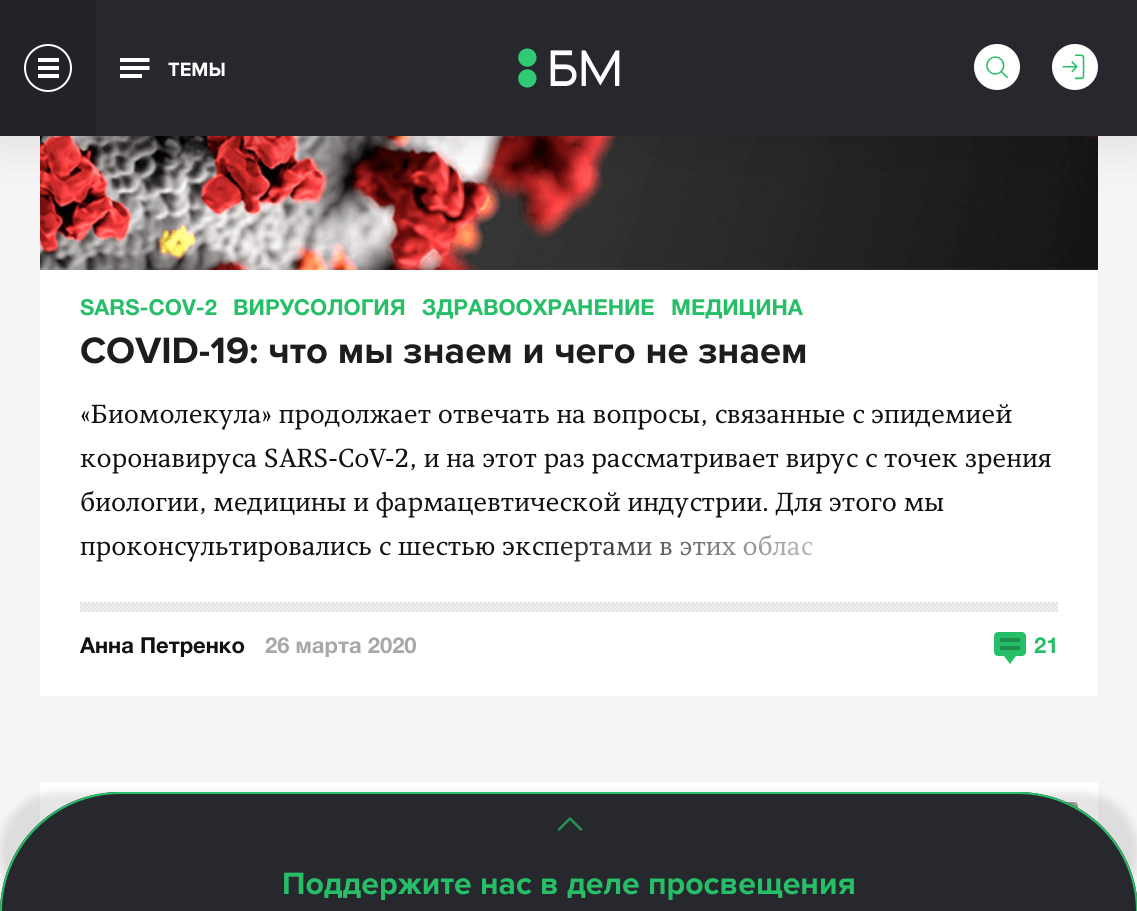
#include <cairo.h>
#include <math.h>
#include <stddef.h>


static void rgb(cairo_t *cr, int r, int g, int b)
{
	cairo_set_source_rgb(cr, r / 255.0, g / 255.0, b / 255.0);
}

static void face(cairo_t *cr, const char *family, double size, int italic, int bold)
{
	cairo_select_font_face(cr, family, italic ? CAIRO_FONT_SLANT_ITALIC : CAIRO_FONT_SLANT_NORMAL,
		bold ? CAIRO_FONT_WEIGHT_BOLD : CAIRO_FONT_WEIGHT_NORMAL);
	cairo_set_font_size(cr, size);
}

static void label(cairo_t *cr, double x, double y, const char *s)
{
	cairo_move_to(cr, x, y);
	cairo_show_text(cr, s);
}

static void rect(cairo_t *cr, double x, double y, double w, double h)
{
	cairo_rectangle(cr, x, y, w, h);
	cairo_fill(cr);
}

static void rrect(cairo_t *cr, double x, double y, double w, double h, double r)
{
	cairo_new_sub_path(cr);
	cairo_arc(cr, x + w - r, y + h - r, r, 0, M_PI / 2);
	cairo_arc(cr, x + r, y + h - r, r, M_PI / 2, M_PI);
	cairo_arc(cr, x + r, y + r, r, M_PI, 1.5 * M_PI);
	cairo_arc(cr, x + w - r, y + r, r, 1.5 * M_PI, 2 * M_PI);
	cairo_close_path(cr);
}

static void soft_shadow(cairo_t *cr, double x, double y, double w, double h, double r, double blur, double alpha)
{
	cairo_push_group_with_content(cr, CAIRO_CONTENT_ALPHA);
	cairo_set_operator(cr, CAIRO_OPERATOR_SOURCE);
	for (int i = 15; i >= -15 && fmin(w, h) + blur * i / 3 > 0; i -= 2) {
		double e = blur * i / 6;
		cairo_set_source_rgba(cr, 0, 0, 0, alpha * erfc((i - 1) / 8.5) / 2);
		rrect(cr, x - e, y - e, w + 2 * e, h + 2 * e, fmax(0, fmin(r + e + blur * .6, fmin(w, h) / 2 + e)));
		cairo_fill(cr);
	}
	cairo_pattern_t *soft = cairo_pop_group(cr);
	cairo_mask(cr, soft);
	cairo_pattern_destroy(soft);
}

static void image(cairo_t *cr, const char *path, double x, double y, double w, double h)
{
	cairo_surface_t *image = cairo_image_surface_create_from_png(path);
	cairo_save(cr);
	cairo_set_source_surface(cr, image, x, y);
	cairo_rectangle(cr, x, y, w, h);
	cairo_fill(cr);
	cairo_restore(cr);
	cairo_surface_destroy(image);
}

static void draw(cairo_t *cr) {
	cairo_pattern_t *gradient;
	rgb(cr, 245, 245, 245);
	cairo_paint(cr);
	rgb(cr, 255, 255, 255);
	rect(cr, 40, 268, 1058, 428);
	image(cr, "image4.png", 40, 136, 1058, 134);
	rgb(cr, 0, 0, 0);
	soft_shadow(cr, 0, 8, 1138, 136, 0, 24, 0.1);
	rgb(cr, 38, 40, 45);
	rect(cr, 96, 0, 1041, 136);
	rgb(cr, 34, 35, 40);
	rect(cr, 0, 0, 96, 136);
	cairo_arc(cr, 48, 68, 23, 0, 2 * M_PI);
	rgb(cr, 255, 255, 255);
	cairo_stroke(cr);
	rect(cr, 38, 58, 21, 4);
	rect(cr, 38, 66, 21, 4);
	rect(cr, 38, 74, 21, 4);
	image(cr, "image0.png", 518, 48, 102, 40);
	cairo_arc(cr, 997, 67, 23, 0, 2 * M_PI);
	cairo_fill(cr);
	image(cr, "image1.png", 986, 56, 22, 22);
	cairo_arc(cr, 1075, 67, 23, 0, 2 * M_PI);
	cairo_fill(cr);
	image(cr, "image2.png", 1062, 54, 23, 26);
	image(cr, "image3.png", 120, 58, 30, 20);
	face(cr, "Proxima Nova", 20, 0, 1);
	label(cr, 168, 76, "ТЕМЫ");
	face(cr, "Helvetica Neue", 22, 0, 1);
	rgb(cr, 38, 191, 104);
	label(cr, 80, 315, "SARS-COV-2");
	label(cr, 233, 315, "ВИРУСОЛОГИЯ");
	label(cr, 422, 315, "ЗДРАВООХРАНЕНИЕ");
	label(cr, 671, 315, "МЕДИЦИНА");
	face(cr, "Proxima Nova", 38, 0, 1);
	rgb(cr, 29, 29, 29);
	label(cr, 80, 363, "COVID-19: что мы знаем и чего не знаем");
	face(cr, "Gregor", 26, 0, 0);
	rgb(cr, 17, 17, 17);
	label(cr, 80, 423, "«Биомолекула» продолжает отвечать на вопросы, связанные с эпидемией");
	label(cr, 80, 467, "коронавируса SARS-CoV-2, и на этот раз рассматривает вирус с точек зрения");
	label(cr, 80, 511, "биологии, медицины и фармацевтической индустрии. Для этого мы");
	label(cr, 80, 555, "проконсультировались с шестью экспертами в этих облас");
	gradient = cairo_pattern_create_linear(530, 550, 1058, 550);
	cairo_pattern_add_color_stop_rgba(gradient, 0, 1, 1, 1, 0);
	cairo_pattern_add_color_stop_rgba(gradient, 0.75, 1, 1, 1, 1);
	cairo_set_source(cr, gradient);
	cairo_pattern_destroy(gradient);
	rect(cr, 539, 534, 274, 28);
	image(cr, "image5.png", 80, 602, 978, 10);
	face(cr, "Helvetica Neue", 22, 0, 1);
	rgb(cr, 17, 17, 17);
	label(cr, 80, 653, "Анна Петренко");
	rgb(cr, 168, 168, 168);
	label(cr, 265, 653, "26 марта 2020");
	image(cr, "image6.png", 994, 632, 32, 32);
	rgb(cr, 38, 191, 104);
	label(cr, 1034, 653, "21");
	rgb(cr, 255, 255, 255);
	rect(cr, 40, 782, 1058, 41);
	rgb(cr, 166, 166, 166);
	rrect(cr, 1008, 802, 70, 68, 4);
	cairo_fill(cr);
	rgb(cr, 0, 0, 0);
	soft_shadow(cr, 0, 792, 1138, 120, 120, 4, 0.1);
	rgb(cr, 38, 40, 45);
	cairo_new_path(cr);
	cairo_move_to(cr, 120, 792);
	cairo_line_to(cr, 1018, 792);
	cairo_curve_to(cr, 1084.5, 792, 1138, 845.5, 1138, 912);
	cairo_line_to(cr, 0, 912);
	cairo_curve_to(cr, 0, 845.5, 53.5, 792, 120, 792);
	cairo_close_path(cr);
	cairo_fill(cr);
	rgb(cr, 38, 191, 104);
	cairo_set_fill_rule(cr, CAIRO_FILL_RULE_EVEN_ODD);
	cairo_new_path(cr);
	cairo_move_to(cr, 120, 792);
	cairo_line_to(cr, 1018, 792);
	cairo_curve_to(cr, 1084, 792, 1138, 846, 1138, 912);
	cairo_line_to(cr, 0, 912);
	cairo_curve_to(cr, 0, 846, 54, 792, 120, 792);
	cairo_close_path(cr);
	cairo_move_to(cr, 120, 794);
	cairo_line_to(cr, 1018, 794);
	cairo_curve_to(cr, 1083, 794, 1136, 847, 1136, 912);
	cairo_line_to(cr, 2, 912);
	cairo_curve_to(cr, 2, 847, 55, 794, 120, 794);
	cairo_close_path(cr);
	cairo_fill(cr);
	cairo_new_path(cr);
	cairo_move_to(cr, 570, 818.5);
	cairo_line_to(cr, 581, 829.5);
	cairo_move_to(cr, 559, 829.5);
	cairo_line_to(cr, 570, 818.5);
	rgb(cr, 38, 146, 86);
	cairo_set_line_width(cr, 2.5);
	cairo_set_line_cap(cr, CAIRO_LINE_CAP_ROUND);
	cairo_set_line_join(cr, CAIRO_LINE_JOIN_ROUND);
	cairo_stroke(cr);
	face(cr, "Proxima Nova", 32, 0, 1);
	rgb(cr, 38, 191, 104);
	label(cr, 282, 894, "Поддержите нас в деле просвещения");
}

int main(void) {
	cairo_surface_t *surface = cairo_image_surface_create(CAIRO_FORMAT_RGB24, 1137, 911);
	cairo_t *cr = cairo_create(surface);
	cairo_font_options_t *options = cairo_font_options_create();
	cairo_font_options_set_hint_metrics(options, CAIRO_HINT_METRICS_OFF);
	cairo_font_options_set_hint_style(options, CAIRO_HINT_STYLE_NONE);
	cairo_set_font_options(cr, options);
	cairo_set_miter_limit(cr, 4);
	draw(cr);
	cairo_surface_write_to_png(surface, "render.png");
	cairo_font_options_destroy(options);
	cairo_destroy(cr);
	cairo_surface_destroy(surface);
	return 0;
}
